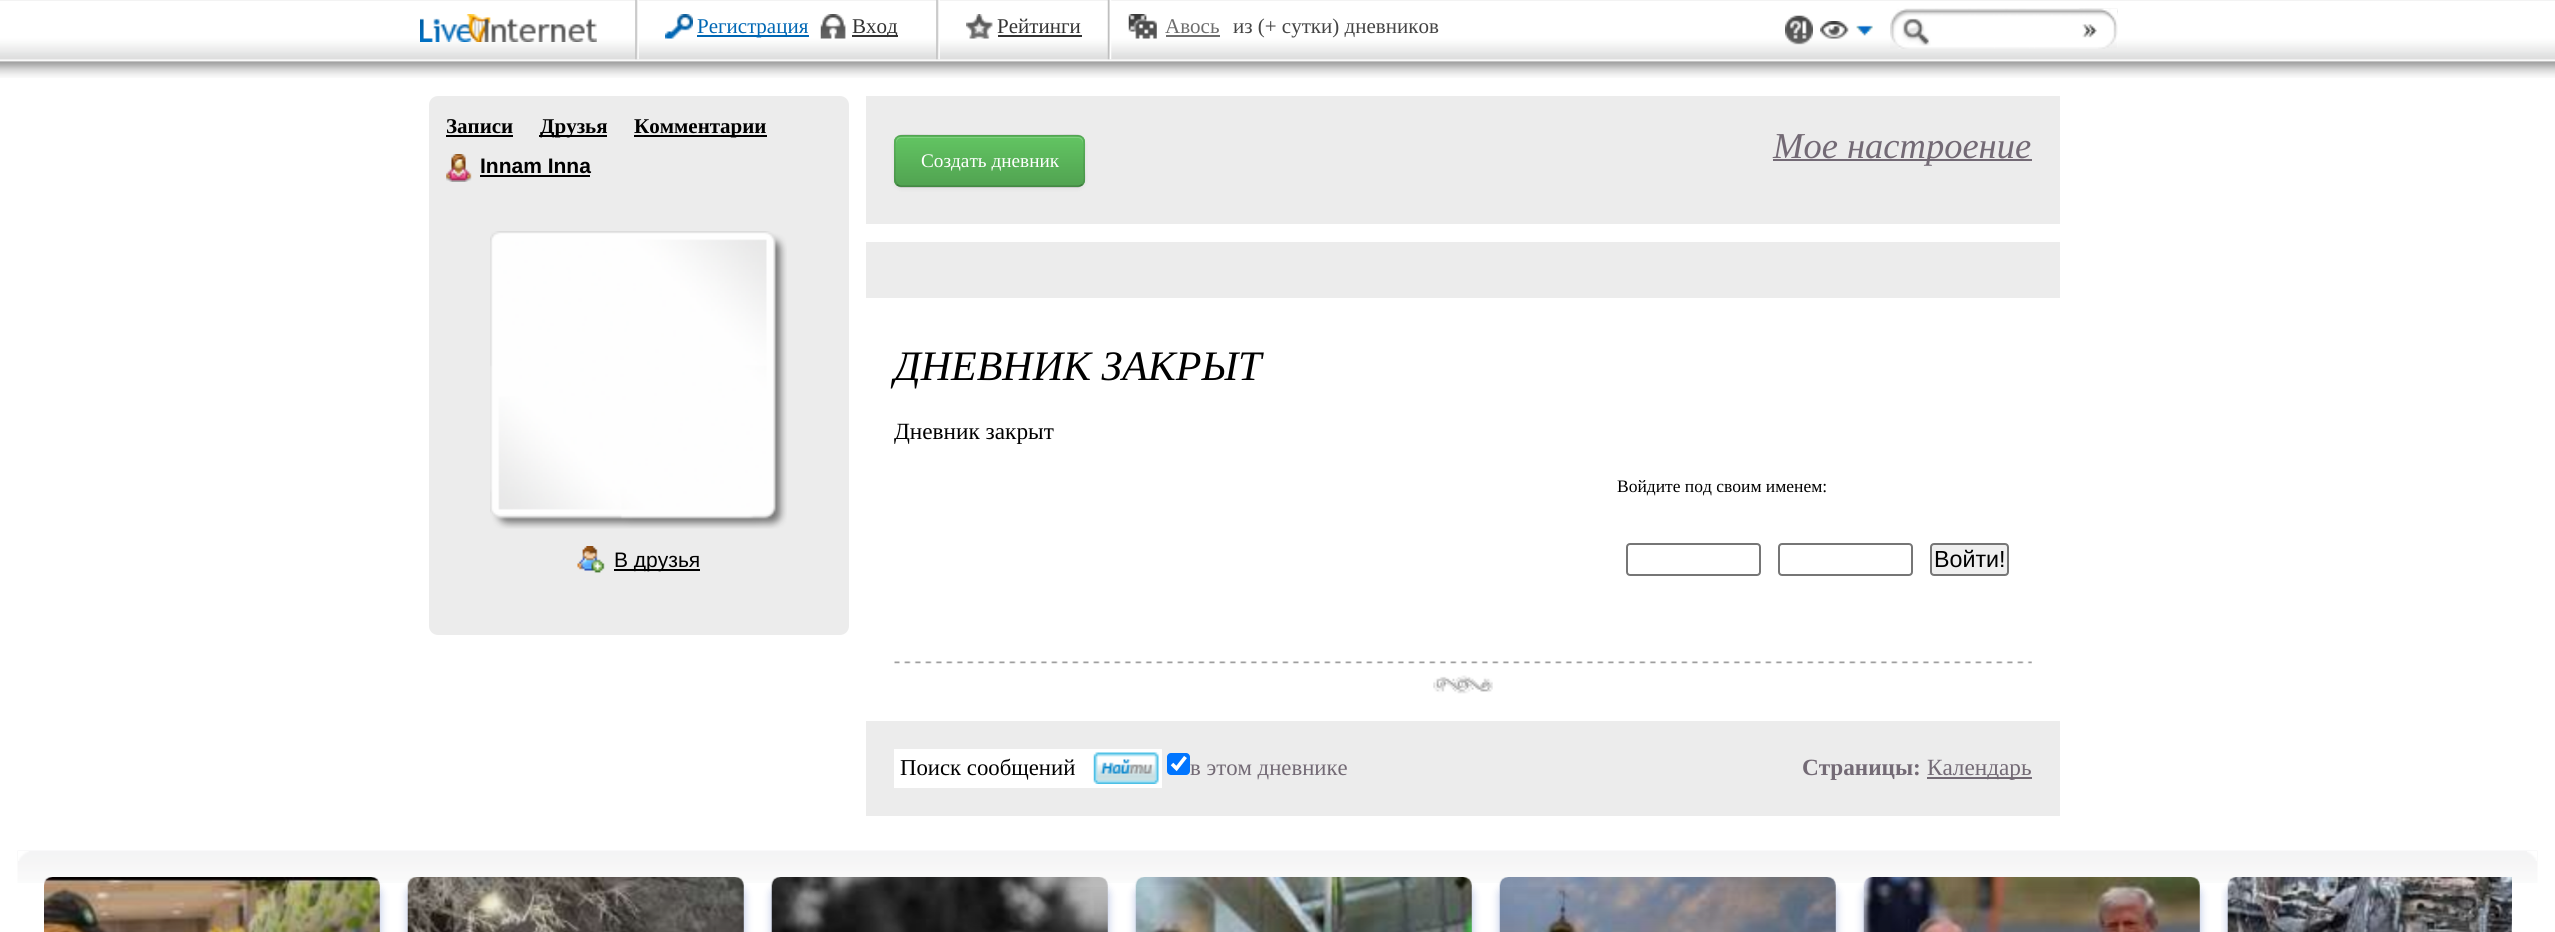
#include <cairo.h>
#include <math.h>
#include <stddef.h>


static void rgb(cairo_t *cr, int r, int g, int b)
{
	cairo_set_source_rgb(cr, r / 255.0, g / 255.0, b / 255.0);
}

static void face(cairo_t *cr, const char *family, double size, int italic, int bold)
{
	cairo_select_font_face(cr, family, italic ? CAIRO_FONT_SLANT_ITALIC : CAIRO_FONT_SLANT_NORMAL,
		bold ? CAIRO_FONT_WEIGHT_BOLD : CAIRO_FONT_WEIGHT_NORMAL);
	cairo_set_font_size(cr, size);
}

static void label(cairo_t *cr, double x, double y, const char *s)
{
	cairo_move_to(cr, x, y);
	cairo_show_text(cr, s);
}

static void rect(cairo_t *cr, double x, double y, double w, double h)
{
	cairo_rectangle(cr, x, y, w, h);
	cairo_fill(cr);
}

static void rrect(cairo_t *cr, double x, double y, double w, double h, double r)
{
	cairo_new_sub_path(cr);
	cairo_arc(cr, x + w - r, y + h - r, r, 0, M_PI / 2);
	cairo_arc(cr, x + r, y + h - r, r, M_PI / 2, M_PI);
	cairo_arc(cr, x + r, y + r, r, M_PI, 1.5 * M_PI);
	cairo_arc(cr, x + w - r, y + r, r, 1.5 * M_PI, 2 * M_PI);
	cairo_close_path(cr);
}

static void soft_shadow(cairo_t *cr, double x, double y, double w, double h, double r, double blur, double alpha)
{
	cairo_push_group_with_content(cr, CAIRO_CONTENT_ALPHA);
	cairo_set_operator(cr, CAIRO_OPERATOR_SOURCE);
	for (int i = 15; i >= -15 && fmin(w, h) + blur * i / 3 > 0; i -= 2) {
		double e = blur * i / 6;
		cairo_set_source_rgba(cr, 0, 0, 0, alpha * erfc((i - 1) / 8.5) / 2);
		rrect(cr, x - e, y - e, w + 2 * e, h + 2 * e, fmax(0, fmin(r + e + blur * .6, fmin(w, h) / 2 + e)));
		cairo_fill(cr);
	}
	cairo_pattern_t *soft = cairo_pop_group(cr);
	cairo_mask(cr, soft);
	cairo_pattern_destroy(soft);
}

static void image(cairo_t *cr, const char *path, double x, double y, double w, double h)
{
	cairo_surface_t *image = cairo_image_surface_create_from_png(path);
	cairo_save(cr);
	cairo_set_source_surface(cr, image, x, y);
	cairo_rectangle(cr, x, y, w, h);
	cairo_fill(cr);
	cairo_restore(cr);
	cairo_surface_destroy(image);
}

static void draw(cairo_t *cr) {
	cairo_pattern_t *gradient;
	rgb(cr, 255, 255, 255);
	cairo_paint(cr);
	image(cr, "image0.png", 0, 0, 2555, 78);
	image(cr, "image1.png", 420, 14, 177, 28);
	image(cr, "image2.png", 635, 0, 4, 60);
	image(cr, "image3.png", 665, 14, 28, 25);
	rgb(cr, 0, 103, 180);
	rect(cr, 697, 35, 112, 2);
	face(cr, "Liberation Serif", 21, 0, 0);
	label(cr, 697, 33, "Регистрация");
	image(cr, "image4.png", 820, 14, 26, 25);
	rgb(cr, 51, 51, 51);
	rect(cr, 852, 35, 46, 2);
	label(cr, 852, 33, "Вход");
	image(cr, "image2.png", 936, 0, 4, 60);
	image(cr, "image5.png", 966, 14, 27, 25);
	label(cr, 997, 33, "Рейтинги");
	rect(cr, 998, 35, 84, 2);
	image(cr, "image6.png", 1107, 0, 5, 60);
	image(cr, "image7.png", 1128, 14, 29, 25);
	rgb(cr, 110, 110, 110);
	label(cr, 1165, 33, "Авось");
	rect(cr, 1166, 35, 54, 2);
	rgb(cr, 68, 68, 68);
	label(cr, 1233, 33, "из (+ сутки) дневников");
	image(cr, "image8.png", 1785, 15, 28, 30);
	image(cr, "image9.png", 1820, 21, 53, 18);
	image(cr, "image10.png", 1890, 8, 228, 41);
	image(cr, "image11.png", 2079, 8, 39, 41);
	rgb(cr, 236, 236, 236);
	rrect(cr, 429, 96, 420, 539, 9);
	cairo_fill(cr);
	face(cr, "Liberation Serif", 21, 0, 1);
	rgb(cr, 0, 0, 0);
	label(cr, 446, 133, "Записи");
	rect(cr, 446, 135, 67, 2);
	rect(cr, 539, 135, 68, 2);
	label(cr, 540, 133, "Друзья");
	rect(cr, 634, 135, 133, 2);
	label(cr, 634, 133, "Комментарии");
	image(cr, "image12.png", 446, 154, 26, 28);
	face(cr, "Liberation Sans", 21, 0, 1);
	label(cr, 480, 173, "Innam Inna");
	rect(cr, 480, 175, 110, 2);
	image(cr, "image13.png", 490, 231, 297, 298);
	image(cr, "image14.png", 577, 546, 28, 27);
	rect(cr, 614, 569, 86, 2);
	face(cr, "Liberation Sans", 21, 0, 0);
	label(cr, 614, 567, "В друзья");
	rgb(cr, 236, 236, 236);
	rect(cr, 866, 96, 1194, 128);
	rgb(cr, 0, 0, 0);
	soft_shadow(cr, 894, 137, 191, 52, 7, 2, 0.05);
	rgb(cr, 91, 183, 91);
	rrect(cr, 894, 135, 191, 52, 7);
	cairo_fill(cr);
	cairo_save(cr);
	rrect(cr, 894, 135, 191, 52, 7);
	cairo_clip(cr);
	gradient = cairo_pattern_create_linear(990, 137, 990, 186);
	cairo_pattern_add_color_stop_rgba(gradient, 0, 0.384, 0.769, 0.384, 1);
	cairo_pattern_add_color_stop_rgba(gradient, 1, 0.318, 0.639, 0.318, 1);
	cairo_set_source(cr, gradient);
	cairo_pattern_destroy(gradient);
	rect(cr, 894, 137, 191, 49);
	cairo_restore(cr);
	rgb(cr, 129, 208, 129);
	cairo_new_path(cr);
	cairo_move_to(cr, 901, 138);
	cairo_line_to(cr, 1078, 138);
	cairo_curve_to(cr, 1081, 138, 1083, 141, 1083, 144);
	cairo_line_to(cr, 1083, 142);
	cairo_curve_to(cr, 1083, 139, 1081, 137, 1078, 137);
	cairo_line_to(cr, 901, 137);
	cairo_curve_to(cr, 898, 137, 896, 139, 896, 142);
	cairo_line_to(cr, 896, 144);
	cairo_curve_to(cr, 896, 141, 898, 138, 901, 138);
	cairo_close_path(cr);
	cairo_fill(cr);
	cairo_new_path(cr);
	cairo_move_to(cr, 1082.5, 184.5);
	cairo_curve_to(cr, 1081, 185.5, 1079.5, 186.5, 1078, 186.5);
	cairo_line_to(cr, 901, 186.5);
	cairo_curve_to(cr, 899.5, 186.5, 898, 185.5, 897, 184.5);
	cairo_set_source_rgba(cr, 0, 0, 0, 0.25);
	cairo_set_line_width(cr, 1.8);
	cairo_stroke(cr);
	cairo_new_path(cr);
	cairo_move_to(cr, 897, 184.5);
	cairo_curve_to(cr, 893.5, 181, 895, 171.5, 895, 167.5);
	cairo_curve_to(cr, 895, 129, 889, 135.5, 930.5, 135.5);
	cairo_line_to(cr, 1048.5, 135.5);
	cairo_curve_to(cr, 1090.5, 135.5, 1084, 129, 1084, 167.5);
	cairo_curve_to(cr, 1084, 171.5, 1086, 181, 1082.5, 184.5);
	cairo_set_source_rgba(cr, 0, 0, 0, 0.1);
	cairo_stroke(cr);
	face(cr, "Liberation Serif", 19.25, 0, 0);
	rgb(cr, 255, 255, 255);
	label(cr, 921, 167, "Создать дневник");
	rgb(cr, 115, 106, 117);
	rect(cr, 1773, 159, 259, 2);
	face(cr, "Liberation Serif", 36.5, 1, 0);
	label(cr, 1773, 158, "Мое настроение");
	rgb(cr, 236, 236, 236);
	rect(cr, 866, 242, 1194, 56);
	image(cr, "image15.png", 1433, 675, 60, 19);
	face(cr, "Liberation Serif", 42, 1, 0);
	rgb(cr, 0, 0, 0);
	label(cr, 894, 380, "ДНЕВНИК ЗАКРЫТ");
	image(cr, "image16.png", 894, 661, 1138, 3);
	face(cr, "Liberation Serif", 23.25, 0, 0);
	label(cr, 894, 439, "Дневник закрыт");
	face(cr, "Liberation Serif", 17.5, 0, 0);
	label(cr, 1617, 492, "Войдите под своим именем:");
	rrect(cr, 1627, 544, 133, 31, 3);
	rgb(cr, 118, 118, 118);
	cairo_set_line_width(cr, 2);
	cairo_stroke(cr);
	rrect(cr, 1779, 544, 133, 31, 3);
	cairo_stroke(cr);
	rgb(cr, 239, 239, 239);
	rrect(cr, 1931, 544, 77, 31, 3);
	cairo_fill_preserve(cr);
	rgb(cr, 118, 118, 118);
	cairo_stroke(cr);
	face(cr, "Liberation Sans", 23.25, 0, 0);
	rgb(cr, 0, 0, 0);
	label(cr, 1934, 567, "Войти!");
	rgb(cr, 236, 236, 236);
	rect(cr, 866, 721, 1194, 95);
	rgb(cr, 255, 255, 255);
	rect(cr, 894, 749, 268, 39);
	face(cr, "Liberation Serif", 22.75, 0, 0);
	rgb(cr, 0, 0, 0);
	label(cr, 900, 775, "Поиск сообщений");
	image(cr, "image17.png", 1093, 752, 66, 32);
	rgb(cr, 0, 117, 255);
	rrect(cr, 1167, 753, 23, 22, 4);
	cairo_fill(cr);
	cairo_new_path(cr);
	cairo_move_to(cr, 1172, 764);
	cairo_line_to(cr, 1176.5, 768.5);
	cairo_line_to(cr, 1185.5, 757);
	rgb(cr, 255, 255, 255);
	cairo_set_line_width(cr, 3.6);
	cairo_stroke(cr);
	rgb(cr, 115, 106, 117);
	label(cr, 1190, 775, "в этом дневнике");
	face(cr, "Liberation Serif", 23.25, 0, 1);
	label(cr, 1802, 775, "Страницы:");
	rect(cr, 1927, 777, 105, 2);
	face(cr, "Liberation Serif", 23.25, 0, 0);
	label(cr, 1927, 775, "Календарь");
	image(cr, "image18.png", 17, 850, 2521, 33);
	image(cr, "image19.png", 18, 851, 11, 10);
	image(cr, "image20.png", 2527, 851, 10, 10);
	cairo_save(cr);
	cairo_rectangle(cr, 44, 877, 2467, 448);
	cairo_clip(cr);
	rgb(cr, 0, 41, 158);
	soft_shadow(cr, 44, 886, 336, 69, 9, 4.5, 0.3);
	cairo_restore(cr);
	image(cr, "image21.png", 44, 877, 336, 55);
	gradient = cairo_pattern_create_linear(212, 877, 212, 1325);
	cairo_pattern_add_color_stop_rgba(gradient, 0, 0, 0, 0, 0);
	cairo_pattern_add_color_stop_rgba(gradient, 0.61, 0, 0, 0, 0.6);
	cairo_set_source(cr, gradient);
	cairo_pattern_destroy(gradient);
	rect(cr, 44, 887, 336, 45);
	rgb(cr, 0, 41, 158);
	soft_shadow(cr, 408, 886, 336, 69, 9, 4.5, 0.3);
	image(cr, "image22.png", 407, 877, 337, 55);
	gradient = cairo_pattern_create_linear(576, 877, 576, 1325);
	cairo_pattern_add_color_stop_rgba(gradient, 0, 0, 0, 0, 0);
	cairo_pattern_add_color_stop_rgba(gradient, 0.61, 0, 0, 0, 0.6);
	cairo_set_source(cr, gradient);
	cairo_pattern_destroy(gradient);
	rect(cr, 408, 887, 336, 45);
	rgb(cr, 0, 41, 158);
	soft_shadow(cr, 772, 886, 336, 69, 9, 4.5, 0.3);
	image(cr, "image23.png", 771, 877, 337, 55);
	gradient = cairo_pattern_create_linear(940, 877, 940, 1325);
	cairo_pattern_add_color_stop_rgba(gradient, 0, 0, 0, 0, 0);
	cairo_pattern_add_color_stop_rgba(gradient, 0.61, 0, 0, 0, 0.6);
	cairo_set_source(cr, gradient);
	cairo_pattern_destroy(gradient);
	rect(cr, 772, 887, 336, 45);
	rgb(cr, 0, 41, 158);
	soft_shadow(cr, 1136, 886, 336, 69, 9, 4.5, 0.3);
	image(cr, "image24.png", 1135, 877, 337, 55);
	gradient = cairo_pattern_create_linear(1304, 877, 1304, 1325);
	cairo_pattern_add_color_stop_rgba(gradient, 0, 0, 0, 0, 0);
	cairo_pattern_add_color_stop_rgba(gradient, 0.61, 0, 0, 0, 0.6);
	cairo_set_source(cr, gradient);
	cairo_pattern_destroy(gradient);
	rect(cr, 1136, 887, 336, 45);
	rgb(cr, 0, 41, 158);
	soft_shadow(cr, 1500, 886, 336, 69, 9, 4.5, 0.3);
	image(cr, "image25.png", 1499, 877, 337, 55);
	gradient = cairo_pattern_create_linear(1668, 877, 1668, 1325);
	cairo_pattern_add_color_stop_rgba(gradient, 0, 0, 0, 0, 0);
	cairo_pattern_add_color_stop_rgba(gradient, 0.61, 0, 0, 0, 0.6);
	cairo_set_source(cr, gradient);
	cairo_pattern_destroy(gradient);
	rect(cr, 1500, 887, 336, 45);
	rgb(cr, 0, 41, 158);
	soft_shadow(cr, 1864, 886, 336, 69, 9, 4.5, 0.3);
	image(cr, "image26.png", 1863, 877, 337, 55);
	gradient = cairo_pattern_create_linear(2032, 877, 2032, 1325);
	cairo_pattern_add_color_stop_rgba(gradient, 0, 0, 0, 0, 0);
	cairo_pattern_add_color_stop_rgba(gradient, 0.61, 0, 0, 0, 0.6);
	cairo_set_source(cr, gradient);
	cairo_pattern_destroy(gradient);
	rect(cr, 1864, 887, 336, 45);
	cairo_save(cr);
	cairo_rectangle(cr, 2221, 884, 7, 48);
	cairo_clip(cr);
	rgb(cr, 0, 41, 158);
	soft_shadow(cr, 2228, 886, 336, 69, 9, 4.5, 0.3);
	cairo_restore(cr);
	image(cr, "image27.png", 2227, 877, 285, 55);
	gradient = cairo_pattern_create_linear(2396, 877, 2396, 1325);
	cairo_pattern_add_color_stop_rgba(gradient, 0, 0, 0, 0, 0);
	cairo_pattern_add_color_stop_rgba(gradient, 0.61, 0, 0, 0, 0.6);
	cairo_set_source(cr, gradient);
	cairo_pattern_destroy(gradient);
	rect(cr, 2228, 887, 283, 45);
}

int main(void) {
	cairo_surface_t *surface = cairo_image_surface_create(CAIRO_FORMAT_RGB24, 2555, 932);
	cairo_t *cr = cairo_create(surface);
	cairo_font_options_t *options = cairo_font_options_create();
	cairo_font_options_set_hint_metrics(options, CAIRO_HINT_METRICS_OFF);
	cairo_font_options_set_hint_style(options, CAIRO_HINT_STYLE_NONE);
	cairo_set_font_options(cr, options);
	cairo_set_miter_limit(cr, 4);
	draw(cr);
	cairo_surface_write_to_png(surface, "render.png");
	cairo_font_options_destroy(options);
	cairo_destroy(cr);
	cairo_surface_destroy(surface);
	return 0;
}
